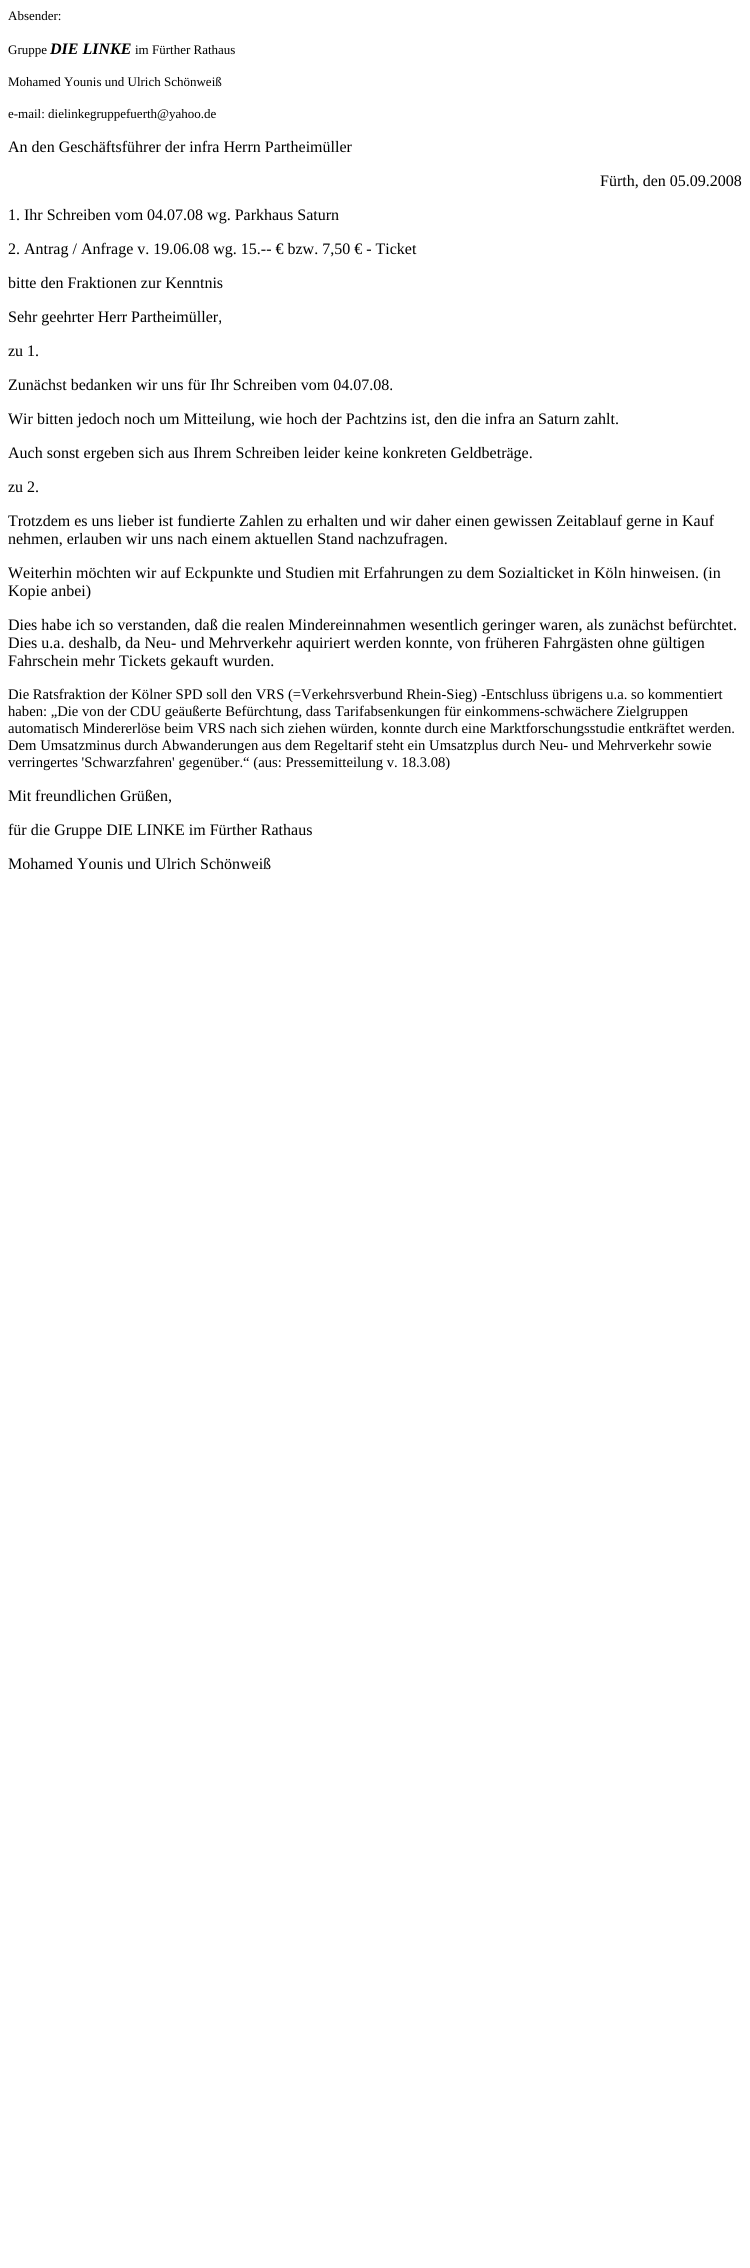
#include <cairo.h>
#include <math.h>
#include <stddef.h>


static void rgb(cairo_t *cr, int r, int g, int b)
{
	cairo_set_source_rgb(cr, r / 255.0, g / 255.0, b / 255.0);
}

static void face(cairo_t *cr, const char *family, double size, int italic, int bold)
{
	cairo_select_font_face(cr, family, italic ? CAIRO_FONT_SLANT_ITALIC : CAIRO_FONT_SLANT_NORMAL,
		bold ? CAIRO_FONT_WEIGHT_BOLD : CAIRO_FONT_WEIGHT_NORMAL);
	cairo_set_font_size(cr, size);
}

static void label(cairo_t *cr, double x, double y, const char *s)
{
	cairo_move_to(cr, x, y);
	cairo_show_text(cr, s);
}

static void draw(cairo_t *cr) {
	rgb(cr, 255, 255, 255);
	cairo_paint(cr);
	face(cr, "Liberation Serif", 13, 0, 0);
	rgb(cr, 0, 0, 0);
	label(cr, 8, 20, "Absender:");
	label(cr, 8, 54, "Gruppe");
	face(cr, "Liberation Serif", 16, 1, 1);
	label(cr, 50, 54, "DIE LINKE");
	face(cr, "Liberation Serif", 13, 0, 0);
	label(cr, 135, 54, "im Fürther Rathaus");
	label(cr, 8, 86, "Mohamed Younis und Ulrich Schönweiß");
	label(cr, 8, 118, "e-mail: dielinkegruppefuerth@yahoo.de");
	face(cr, "Liberation Serif", 16, 0, 0);
	label(cr, 8, 152, "An den Geschäftsführer der infra Herrn Partheimüller");
	label(cr, 600, 186, "Fürth, den 05.09.2008");
	label(cr, 8, 220, "1. Ihr Schreiben vom 04.07.08 wg. Parkhaus Saturn");
	label(cr, 8, 254, "2. Antrag / Anfrage v. 19.06.08 wg. 15.-- € bzw. 7,50 € - Ticket");
	label(cr, 8, 288, "bitte den Fraktionen zur Kenntnis");
	label(cr, 8, 322, "Sehr geehrter Herr Partheimüller,");
	label(cr, 8, 356, "zu 1.");
	label(cr, 8, 390, "Zunächst bedanken wir uns für Ihr Schreiben vom 04.07.08.");
	label(cr, 8, 424, "Wir bitten jedoch noch um Mitteilung, wie hoch der Pachtzins ist, den die infra an Saturn zahlt.");
	label(cr, 8, 458, "Auch sonst ergeben sich aus Ihrem Schreiben leider keine konkreten Geldbeträge.");
	label(cr, 8, 492, "zu 2.");
	label(cr, 8, 526, "Trotzdem es uns lieber ist fundierte Zahlen zu erhalten und wir daher einen gewissen Zeitablauf gerne in Kauf");
	label(cr, 8, 544, "nehmen, erlauben wir uns nach einem aktuellen Stand nachzufragen.");
	label(cr, 8, 578, "Weiterhin möchten wir auf Eckpunkte und Studien mit Erfahrungen zu dem Sozialticket in Köln hinweisen. (in");
	label(cr, 8, 596, "Kopie anbei)");
	label(cr, 8, 630, "Dies habe ich so verstanden, daß die realen Mindereinnahmen wesentlich geringer waren, als zunächst befürchtet.");
	label(cr, 8, 648, "Dies u.a. deshalb, da Neu- und Mehrverkehr aquiriert werden konnte, von früheren Fahrgästen ohne gültigen");
	label(cr, 8, 666, "Fahrschein mehr Tickets gekauft wurden.");
	face(cr, "Liberation Serif", 14.65, 0, 0);
	label(cr, 8, 699, "Die Ratsfraktion der Kölner SPD soll den VRS (=Verkehrsverbund Rhein-Sieg) -Entschluss übrigens u.a. so kommentiert");
	label(cr, 8, 716, "haben: „Die von der CDU geäußerte Befürchtung, dass Tarifabsenkungen für einkommens-schwächere Zielgruppen");
	label(cr, 8, 733, "automatisch Mindererlöse beim VRS nach sich ziehen würden, konnte durch eine Marktforschungsstudie entkräftet werden.");
	label(cr, 8, 750, "Dem Umsatzminus durch Abwanderungen aus dem Regeltarif steht ein Umsatzplus durch Neu- und Mehrverkehr sowie");
	label(cr, 8, 767, "verringertes 'Schwarzfahren' gegenüber.“ (aus: Pressemitteilung v. 18.3.08)");
	face(cr, "Liberation Serif", 16, 0, 0);
	label(cr, 8, 801, "Mit freundlichen Grüßen,");
	label(cr, 8, 835, "für die Gruppe DIE LINKE im Fürther Rathaus");
	label(cr, 8, 869, "Mohamed Younis und Ulrich Schönweiß");
}

int main(void) {
	cairo_surface_t *surface = cairo_image_surface_create(CAIRO_FORMAT_RGB24, 750, 2268);
	cairo_t *cr = cairo_create(surface);
	cairo_font_options_t *options = cairo_font_options_create();
	cairo_font_options_set_hint_metrics(options, CAIRO_HINT_METRICS_OFF);
	cairo_font_options_set_hint_style(options, CAIRO_HINT_STYLE_NONE);
	cairo_set_font_options(cr, options);
	cairo_set_miter_limit(cr, 4);
	draw(cr);
	cairo_surface_write_to_png(surface, "render.png");
	cairo_font_options_destroy(options);
	cairo_destroy(cr);
	cairo_surface_destroy(surface);
	return 0;
}
